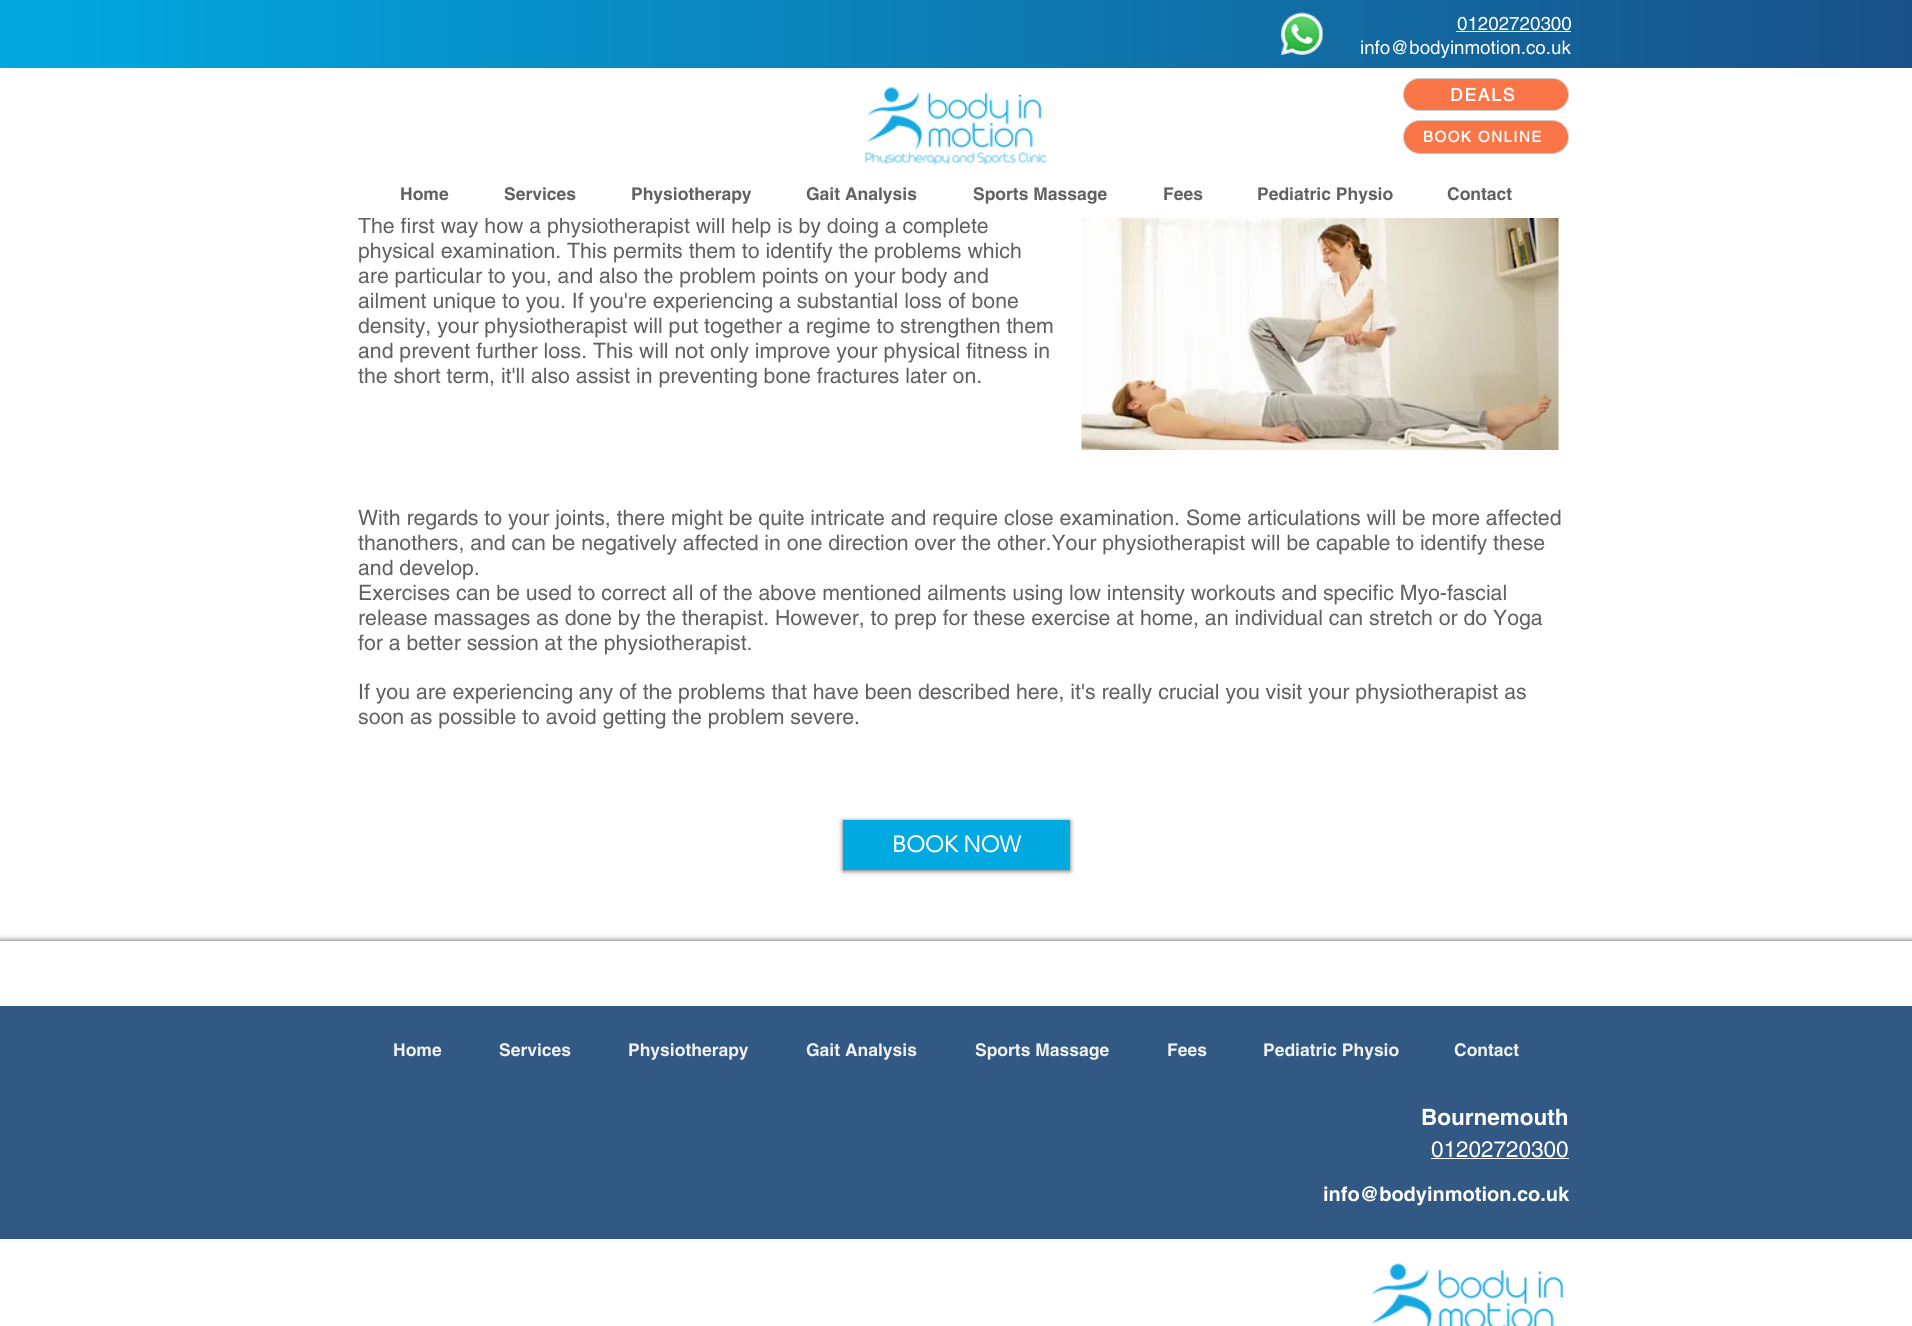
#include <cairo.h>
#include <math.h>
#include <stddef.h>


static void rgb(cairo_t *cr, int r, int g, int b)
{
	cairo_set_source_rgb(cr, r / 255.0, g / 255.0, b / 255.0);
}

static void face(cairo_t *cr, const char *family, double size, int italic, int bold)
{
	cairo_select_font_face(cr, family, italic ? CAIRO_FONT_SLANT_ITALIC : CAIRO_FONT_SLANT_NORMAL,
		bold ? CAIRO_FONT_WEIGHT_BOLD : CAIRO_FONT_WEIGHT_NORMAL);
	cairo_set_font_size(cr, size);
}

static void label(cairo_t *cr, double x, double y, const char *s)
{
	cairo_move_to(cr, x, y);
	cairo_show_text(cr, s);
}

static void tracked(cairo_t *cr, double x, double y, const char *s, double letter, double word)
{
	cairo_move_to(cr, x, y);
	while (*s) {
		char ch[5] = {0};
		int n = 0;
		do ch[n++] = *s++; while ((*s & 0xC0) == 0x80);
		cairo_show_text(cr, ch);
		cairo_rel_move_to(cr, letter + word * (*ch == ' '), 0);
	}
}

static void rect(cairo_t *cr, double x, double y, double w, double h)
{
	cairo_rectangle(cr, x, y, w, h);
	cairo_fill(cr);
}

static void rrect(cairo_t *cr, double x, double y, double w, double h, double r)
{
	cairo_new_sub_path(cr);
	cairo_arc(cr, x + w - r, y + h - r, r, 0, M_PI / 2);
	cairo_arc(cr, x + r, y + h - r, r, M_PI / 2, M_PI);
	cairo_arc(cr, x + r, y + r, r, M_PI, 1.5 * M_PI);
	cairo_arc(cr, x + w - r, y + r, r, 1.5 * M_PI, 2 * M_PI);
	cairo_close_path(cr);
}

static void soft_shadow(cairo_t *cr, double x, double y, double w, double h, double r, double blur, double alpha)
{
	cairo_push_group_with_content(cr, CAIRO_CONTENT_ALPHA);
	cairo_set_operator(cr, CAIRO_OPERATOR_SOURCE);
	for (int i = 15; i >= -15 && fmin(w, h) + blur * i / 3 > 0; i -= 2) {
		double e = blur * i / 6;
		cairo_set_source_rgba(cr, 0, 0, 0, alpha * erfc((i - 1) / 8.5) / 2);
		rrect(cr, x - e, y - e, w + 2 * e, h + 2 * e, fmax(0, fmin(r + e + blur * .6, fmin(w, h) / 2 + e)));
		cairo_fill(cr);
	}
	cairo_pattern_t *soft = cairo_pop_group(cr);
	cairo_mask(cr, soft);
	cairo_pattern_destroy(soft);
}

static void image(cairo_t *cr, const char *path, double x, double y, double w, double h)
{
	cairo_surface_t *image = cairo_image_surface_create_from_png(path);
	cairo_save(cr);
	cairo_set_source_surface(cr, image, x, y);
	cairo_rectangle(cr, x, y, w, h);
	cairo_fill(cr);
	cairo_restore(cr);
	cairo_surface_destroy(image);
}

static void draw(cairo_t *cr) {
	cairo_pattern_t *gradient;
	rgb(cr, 255, 255, 255);
	cairo_paint(cr);
	gradient = cairo_pattern_create_linear(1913, 34, 0, 34);
	cairo_pattern_add_color_stop_rgba(gradient, 0, 0.098, 0.314, 0.533, 1);
	cairo_pattern_add_color_stop_rgba(gradient, 1, 0.004, 0.663, 0.882, 1);
	cairo_set_source(cr, gradient);
	cairo_pattern_destroy(gradient);
	rect(cr, 0, 0, 1912, 68);
	image(cr, "image0.png", 1281, 12, 42, 43);
	face(cr, "helvetica", 18.75, 0, 0);
	rgb(cr, 255, 255, 255);
	label(cr, 1457, 30, "01202720300");
	rgb(cr, 250, 250, 250);
	rect(cr, 1456, 31, 115, 1);
	rgb(cr, 255, 255, 255);
	label(cr, 1360, 54, "info@bodyinmotion.co.uk");
	image(cr, "image1.png", 865, 87, 182, 78);
	rgb(cr, 250, 117, 72);
	rrect(cr, 1403.5, 78.5, 165, 32, 16);
	cairo_fill_preserve(cr);
	rgb(cr, 204, 204, 204);
	cairo_set_line_width(cr, 1);
	cairo_stroke(cr);
	face(cr, "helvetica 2", 17.5, 0, 1);
	rgb(cr, 255, 255, 255);
	tracked(cr, 1450, 101, "DEALS", 1.75, 0);
	rgb(cr, 250, 117, 72);
	rrect(cr, 1403.5, 120.5, 165, 33, 16.5);
	cairo_fill_preserve(cr);
	rgb(cr, 204, 204, 204);
	cairo_stroke(cr);
	face(cr, "helvetica 2", 15, 0, 1);
	rgb(cr, 255, 255, 255);
	tracked(cr, 1423, 142, "BOOK ONLINE", 1.5, 0);
	face(cr, "helvetica", 17.5, 0, 1);
	rgb(cr, 97, 97, 97);
	label(cr, 400, 200, "Home");
	label(cr, 504, 200, "Services");
	label(cr, 631, 200, "Physiotherapy");
	label(cr, 806, 200, "Gait Analysis");
	label(cr, 973, 200, "Sports Massage");
	label(cr, 1163, 200, "Fees");
	label(cr, 1257, 200, "Pediatric Physio");
	label(cr, 1447, 200, "Contact");
	face(cr, "helvetica", 21.25, 0, 0);
	label(cr, 358, 233, "The first way how a physiotherapist will help is by doing a complete");
	rgb(cr, 255, 255, 255);
	rect(cr, 357, 217, 601, 1);
	rgb(cr, 97, 97, 97);
	label(cr, 358, 258, "physical examination. This permits them to identify the problems which");
	label(cr, 358, 283, "are particular to you, and also the problem points on your body and");
	label(cr, 358, 308, "ailment unique to you. If you're experiencing a substantial loss of bone");
	label(cr, 358, 333, "density, your physiotherapist will put together a regime to strengthen them");
	label(cr, 358, 358, "and prevent further loss. This will not only improve your physical fitness in");
	label(cr, 358, 383, "the short term, it'll also assist in preventing bone fractures later on.");
	image(cr, "image2.png", 1081, 218, 478, 232);
	label(cr, 358, 525, "With regards to your joints, there might be quite intricate and require close examination. Some articulations will be more affected");
	label(cr, 358, 550, "thanothers, and can be negatively affected in one direction over the other.Your physiotherapist will be capable to identify these");
	label(cr, 358, 575, "and develop.");
	label(cr, 358, 600, "Exercises can be used to correct all of the above mentioned ailments using low intensity workouts and specific Myo-fascial");
	label(cr, 358, 625, "release massages as done by the therapist. However, to prep for these exercise at home, an individual can stretch or do Yoga");
	label(cr, 358, 650, "for a better session at the physiotherapist.");
	label(cr, 358, 699, "If you are experiencing any of the problems that have been described here, it's really crucial you visit your physiotherapist as");
	label(cr, 358, 724, "soon as possible to avoid getting the problem severe.");
	rgb(cr, 0, 0, 0);
	soft_shadow(cr, 843, 821, 227, 50, 0, 2.5, 0.6);
	rgb(cr, 1, 169, 225);
	rect(cr, 843, 820, 227, 50);
	face(cr, "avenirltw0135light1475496", 22.5, 0, 1);
	rgb(cr, 255, 255, 255);
	label(cr, 892, 852, "BOOK NOW");
	rgb(cr, 0, 0, 0);
	soft_shadow(cr, 0, 941, 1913, 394, 0, 3, 0.7);
	rgb(cr, 255, 255, 255);
	rect(cr, 0, 941, 1912, 385);
	rgb(cr, 49, 89, 132);
	rect(cr, 0, 1006, 1912, 233);
	face(cr, "helvetica", 17.5, 0, 1);
	rgb(cr, 242, 242, 242);
	label(cr, 393, 1056, "Home");
	label(cr, 499, 1056, "Services");
	label(cr, 628, 1056, "Physiotherapy");
	label(cr, 806, 1056, "Gait Analysis");
	label(cr, 975, 1056, "Sports Massage");
	label(cr, 1167, 1056, "Fees");
	label(cr, 1263, 1056, "Pediatric Physio");
	label(cr, 1454, 1056, "Contact");
	face(cr, "helvetica", 22.5, 0, 1);
	rgb(cr, 255, 255, 255);
	label(cr, 1421, 1125, "Bournemouth");
	face(cr, "helvetica", 22.5, 0, 0);
	label(cr, 1431, 1157, "01202720300");
	rgb(cr, 250, 250, 250);
	rect(cr, 1431, 1158, 138, 1);
	face(cr, "helvetica", 20, 0, 1);
	rgb(cr, 255, 255, 255);
	label(cr, 1323, 1201, "info@bodyinmotion.co.uk");
	image(cr, "image3.png", 1371, 1263, 193, 63);
}

int main(void) {
	cairo_surface_t *surface = cairo_image_surface_create(CAIRO_FORMAT_RGB24, 1912, 1326);
	cairo_t *cr = cairo_create(surface);
	cairo_font_options_t *options = cairo_font_options_create();
	cairo_font_options_set_hint_metrics(options, CAIRO_HINT_METRICS_OFF);
	cairo_font_options_set_hint_style(options, CAIRO_HINT_STYLE_NONE);
	cairo_set_font_options(cr, options);
	cairo_set_miter_limit(cr, 4);
	draw(cr);
	cairo_surface_write_to_png(surface, "render.png");
	cairo_font_options_destroy(options);
	cairo_destroy(cr);
	cairo_surface_destroy(surface);
	return 0;
}
